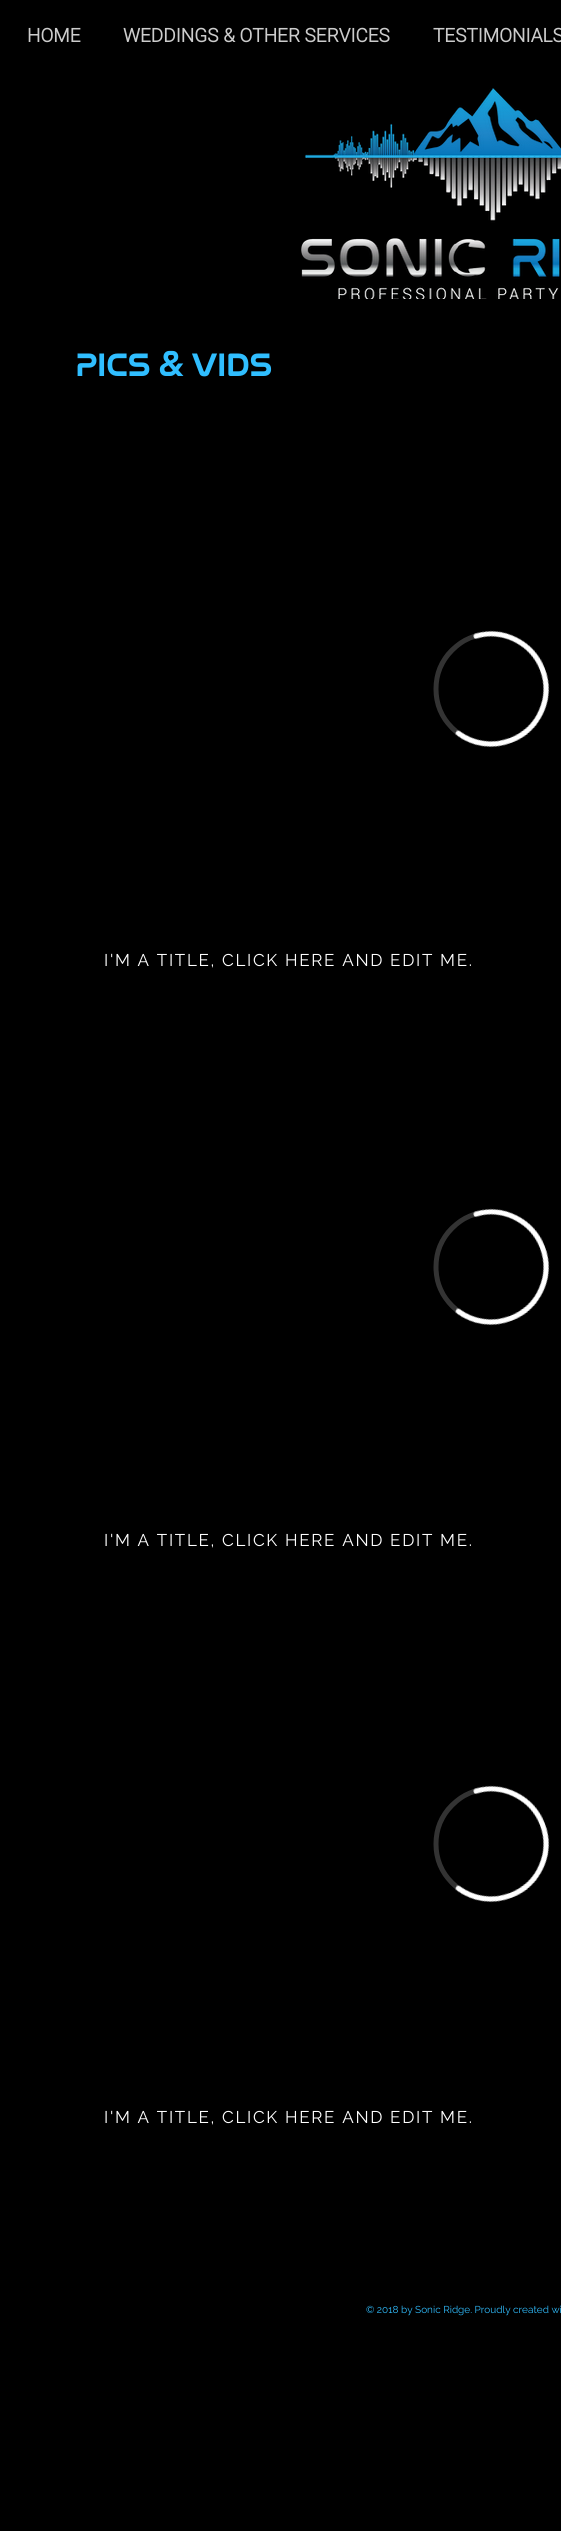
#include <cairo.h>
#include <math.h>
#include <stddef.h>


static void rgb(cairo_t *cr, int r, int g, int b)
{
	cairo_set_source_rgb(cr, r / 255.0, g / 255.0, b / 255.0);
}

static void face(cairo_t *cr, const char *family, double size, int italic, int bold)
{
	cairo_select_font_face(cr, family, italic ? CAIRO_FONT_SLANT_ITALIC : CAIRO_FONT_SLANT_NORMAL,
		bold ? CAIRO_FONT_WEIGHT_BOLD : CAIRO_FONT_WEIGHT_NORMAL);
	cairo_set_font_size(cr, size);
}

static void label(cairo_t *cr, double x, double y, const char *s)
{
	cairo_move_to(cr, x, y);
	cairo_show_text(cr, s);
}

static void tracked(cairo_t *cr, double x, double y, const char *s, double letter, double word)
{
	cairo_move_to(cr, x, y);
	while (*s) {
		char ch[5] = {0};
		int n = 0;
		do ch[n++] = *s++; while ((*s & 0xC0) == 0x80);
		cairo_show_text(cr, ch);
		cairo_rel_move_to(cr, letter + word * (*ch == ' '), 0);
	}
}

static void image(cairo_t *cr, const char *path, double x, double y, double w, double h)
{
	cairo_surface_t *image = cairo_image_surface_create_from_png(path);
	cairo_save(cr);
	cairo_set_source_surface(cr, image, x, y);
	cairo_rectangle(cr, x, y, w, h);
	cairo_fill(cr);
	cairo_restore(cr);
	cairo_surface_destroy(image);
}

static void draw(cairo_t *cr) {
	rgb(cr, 0, 0, 0);
	cairo_paint(cr);
	face(cr, "Roboto", 19, 0, 1);
	rgb(cr, 204, 204, 204);
	label(cr, 27, 42, "HOME");
	label(cr, 123, 42, "WEDDINGS & OTHER SERVICES");
	label(cr, 433, 42, "TESTIMONIALS");
	image(cr, "image0.png", 301, 88, 260, 211);
	face(cr, "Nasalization", 32, 0, 1);
	rgb(cr, 48, 190, 255);
	label(cr, 75, 376, "PICS & VIDS");
	image(cr, "image1.png", 433, 630, 117, 118);
	face(cr, "Raleway", 17, 0, 0);
	rgb(cr, 255, 255, 255);
	tracked(cr, 104, 966, "I'M A TITLE, CLICK HERE AND EDIT ME.", 1.7, 0);
	image(cr, "image2.png", 433, 1208, 117, 118);
	tracked(cr, 104, 1546, "I'M A TITLE, CLICK HERE AND EDIT ME.", 1.7, 0);
	image(cr, "image3.png", 433, 1785, 117, 118);
	tracked(cr, 104, 2123, "I'M A TITLE, CLICK HERE AND EDIT ME.", 1.7, 0);
	face(cr, "Raleway", 10, 0, 0);
	rgb(cr, 48, 190, 255);
	label(cr, 366, 2313, "© 2018 by Sonic Ridge. Proudly created wi");
}

int main(void) {
	cairo_surface_t *surface = cairo_image_surface_create(CAIRO_FORMAT_RGB24, 561, 2531);
	cairo_t *cr = cairo_create(surface);
	cairo_font_options_t *options = cairo_font_options_create();
	cairo_font_options_set_hint_metrics(options, CAIRO_HINT_METRICS_OFF);
	cairo_font_options_set_hint_style(options, CAIRO_HINT_STYLE_NONE);
	cairo_set_font_options(cr, options);
	cairo_set_miter_limit(cr, 4);
	draw(cr);
	cairo_surface_write_to_png(surface, "render.png");
	cairo_font_options_destroy(options);
	cairo_destroy(cr);
	cairo_surface_destroy(surface);
	return 0;
}
